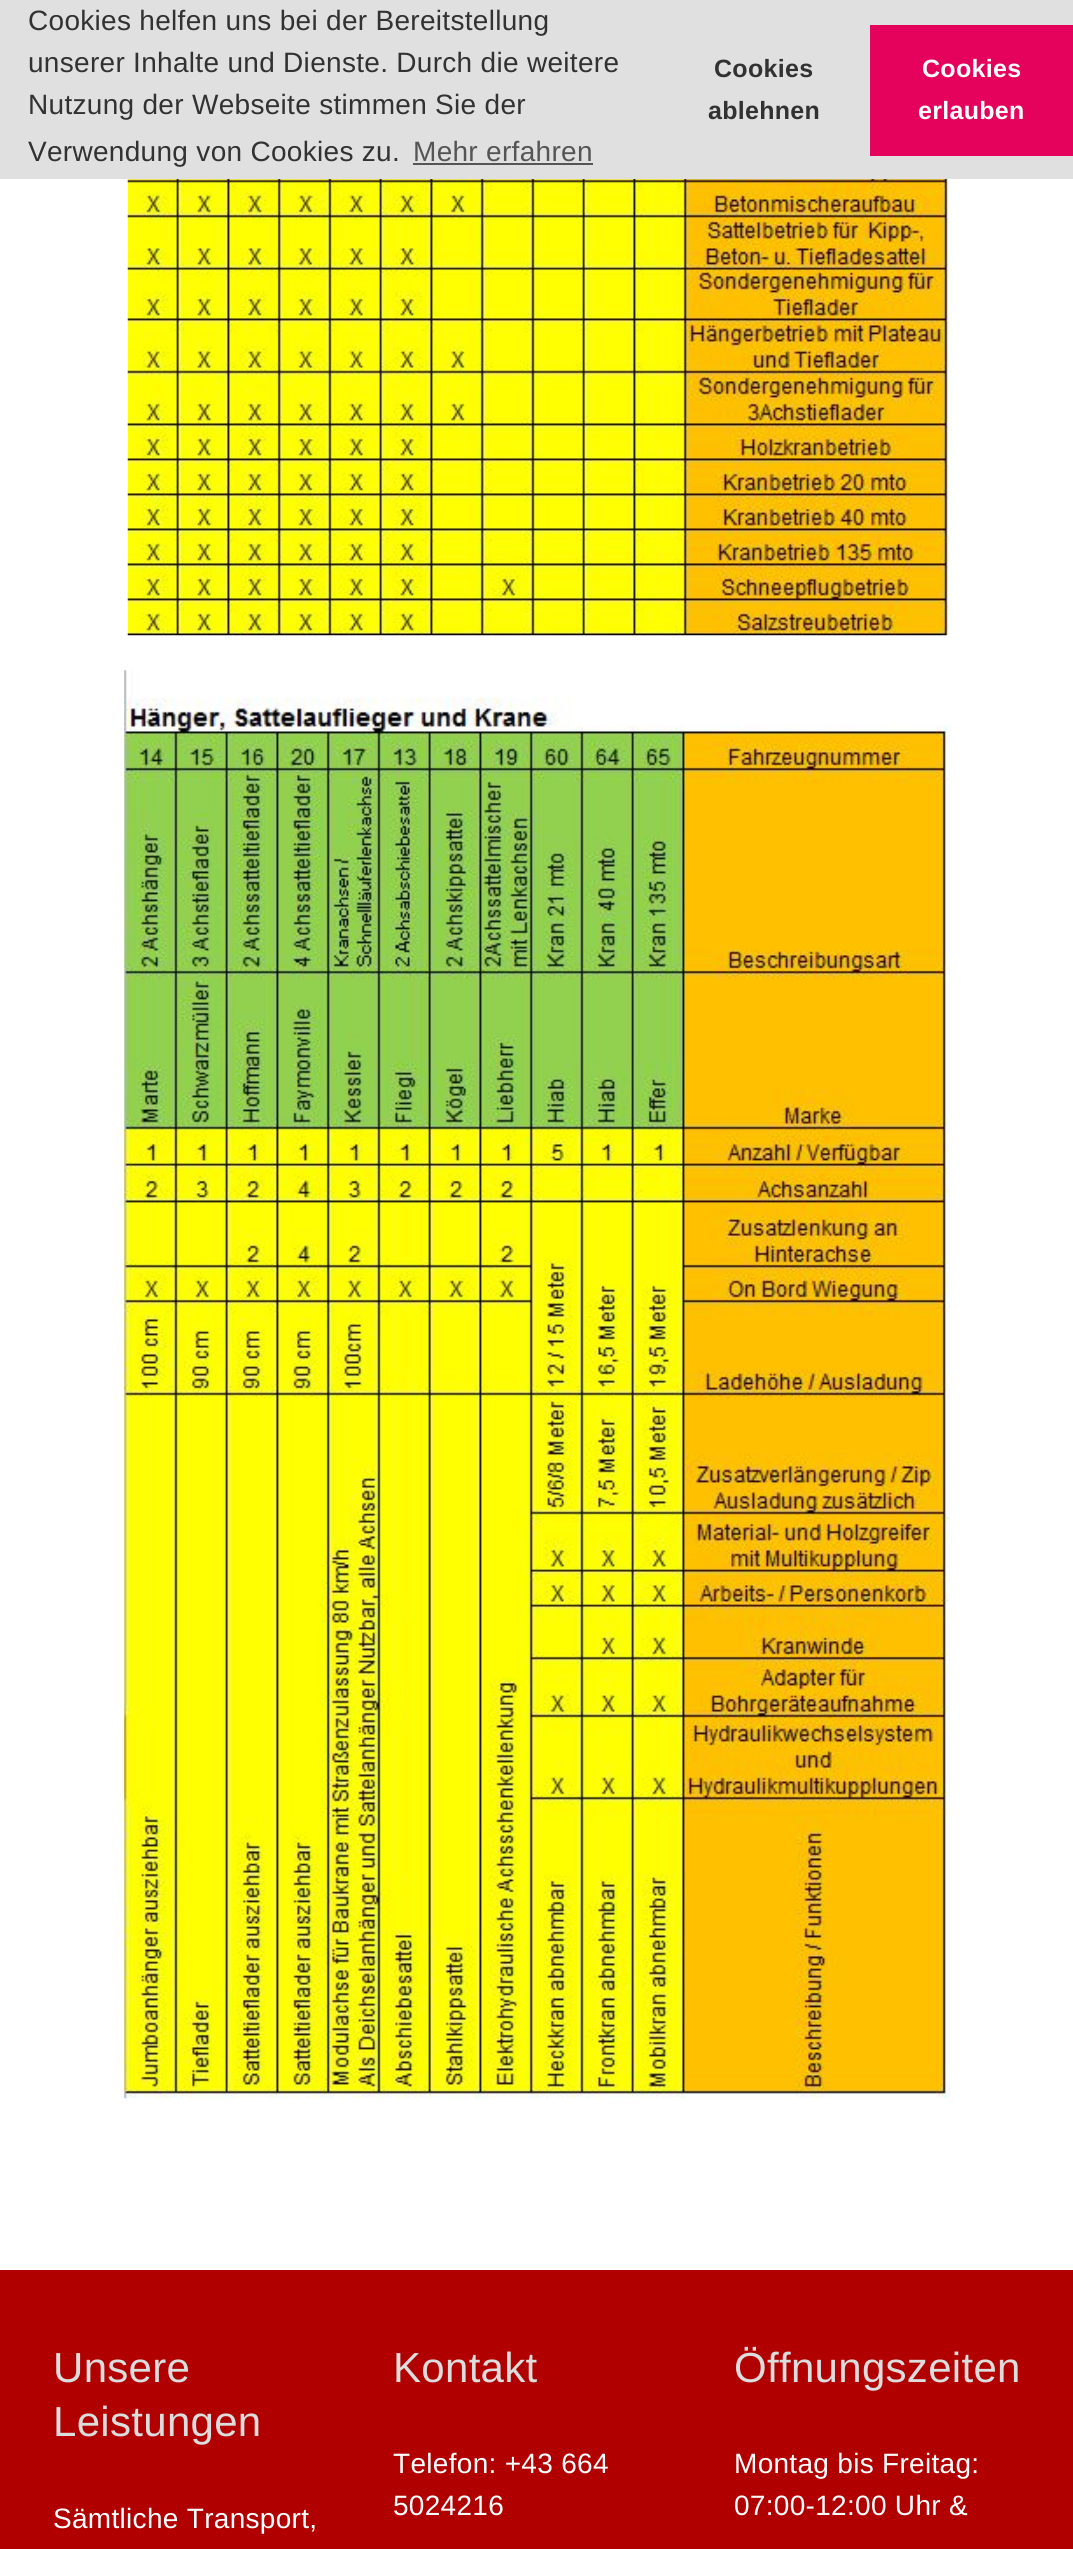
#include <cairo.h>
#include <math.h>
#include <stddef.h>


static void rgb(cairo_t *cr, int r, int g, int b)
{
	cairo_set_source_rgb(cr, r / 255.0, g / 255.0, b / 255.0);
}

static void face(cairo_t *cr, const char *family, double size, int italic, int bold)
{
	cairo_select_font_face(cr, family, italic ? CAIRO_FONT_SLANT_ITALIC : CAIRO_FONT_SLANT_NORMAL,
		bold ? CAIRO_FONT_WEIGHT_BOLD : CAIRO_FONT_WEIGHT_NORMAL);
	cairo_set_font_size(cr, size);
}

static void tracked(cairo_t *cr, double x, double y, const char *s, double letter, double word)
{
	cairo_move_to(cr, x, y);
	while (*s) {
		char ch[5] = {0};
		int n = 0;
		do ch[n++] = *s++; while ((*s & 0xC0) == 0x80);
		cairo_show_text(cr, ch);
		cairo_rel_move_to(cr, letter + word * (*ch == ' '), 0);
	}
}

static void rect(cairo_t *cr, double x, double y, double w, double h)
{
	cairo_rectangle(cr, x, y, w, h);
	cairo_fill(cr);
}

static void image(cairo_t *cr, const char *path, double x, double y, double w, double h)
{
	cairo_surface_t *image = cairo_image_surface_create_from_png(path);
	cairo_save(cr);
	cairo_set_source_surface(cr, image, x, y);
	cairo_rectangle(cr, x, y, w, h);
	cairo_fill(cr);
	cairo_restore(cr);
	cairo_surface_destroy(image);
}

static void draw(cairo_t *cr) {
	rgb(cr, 255, 255, 255);
	cairo_paint(cr);
	rgb(cr, 224, 224, 224);
	rect(cr, 0, 0, 1073, 179);
	face(cr, "Liberation Sans", 28, 0, 0);
	rgb(cr, 51, 50, 50);
	tracked(cr, 28, 30, "Cookies helfen uns bei der Bereitstellung", 0.3, 0);
	tracked(cr, 28, 72, "unserer Inhalte und Dienste. Durch die weitere", 0.3, 0);
	tracked(cr, 28, 114, "Nutzung der Webseite stimmen Sie der", 0.3, 0);
	tracked(cr, 28, 161, "Verwendung von Cookies zu.", 0.3, 0);
	rgb(cr, 86, 85, 85);
	tracked(cr, 413, 161, "Mehr erfahren", 0.3, 0);
	rect(cr, 413, 163, 180, 2);
	face(cr, "Liberation Sans", 25, 0, 1);
	rgb(cr, 51, 50, 50);
	tracked(cr, 714, 77, "Cookies", 0.3, 0);
	tracked(cr, 708, 119, "ablehnen", 0.3, 0);
	rgb(cr, 229, 2, 93);
	rect(cr, 870, 25, 203, 131);
	rgb(cr, 255, 255, 255);
	tracked(cr, 922, 77, "Cookies", 0.3, 0);
	tracked(cr, 918, 119, "erlauben", 0.3, 0);
	image(cr, "image0.png", 127, 179, 822, 457);
	image(cr, "image1.png", 124, 670, 827, 1429);
	rgb(cr, 176, 0, 0);
	rect(cr, 0, 2270, 1073, 279);
	face(cr, "Liberation Sans", 42, 0, 0);
	rgb(cr, 221, 221, 221);
	tracked(cr, 53, 2382, "Unsere", 0.3, 0);
	tracked(cr, 53, 2436, "Leistungen", 0.3, 0);
	face(cr, "Liberation Sans", 28, 0, 0);
	rgb(cr, 255, 255, 255);
	tracked(cr, 53, 2528, "Sämtliche Transport,", 0.3, 0);
	face(cr, "Liberation Sans", 42, 0, 0);
	rgb(cr, 221, 221, 221);
	tracked(cr, 393, 2382, "Kontakt", 0.3, 0);
	face(cr, "Liberation Sans", 28, 0, 0);
	rgb(cr, 255, 255, 255);
	tracked(cr, 393, 2473, "Telefon: +43 664", 0.3, 0);
	tracked(cr, 393, 2515, "5024216", 0.3, 0);
	face(cr, "Liberation Sans", 42, 0, 0);
	rgb(cr, 221, 221, 221);
	tracked(cr, 734, 2382, "Öffnungszeiten", 0.3, 0);
	face(cr, "Liberation Sans", 28, 0, 0);
	rgb(cr, 255, 255, 255);
	tracked(cr, 734, 2473, "Montag bis Freitag:", 0.3, 0);
	tracked(cr, 734, 2515, "07:00-12:00 Uhr &", 0.3, 0);
}

int main(void) {
	cairo_surface_t *surface = cairo_image_surface_create(CAIRO_FORMAT_RGB24, 1073, 2549);
	cairo_t *cr = cairo_create(surface);
	cairo_font_options_t *options = cairo_font_options_create();
	cairo_font_options_set_hint_metrics(options, CAIRO_HINT_METRICS_OFF);
	cairo_font_options_set_hint_style(options, CAIRO_HINT_STYLE_NONE);
	cairo_set_font_options(cr, options);
	cairo_set_miter_limit(cr, 4);
	draw(cr);
	cairo_surface_write_to_png(surface, "render.png");
	cairo_font_options_destroy(options);
	cairo_destroy(cr);
	cairo_surface_destroy(surface);
	return 0;
}
